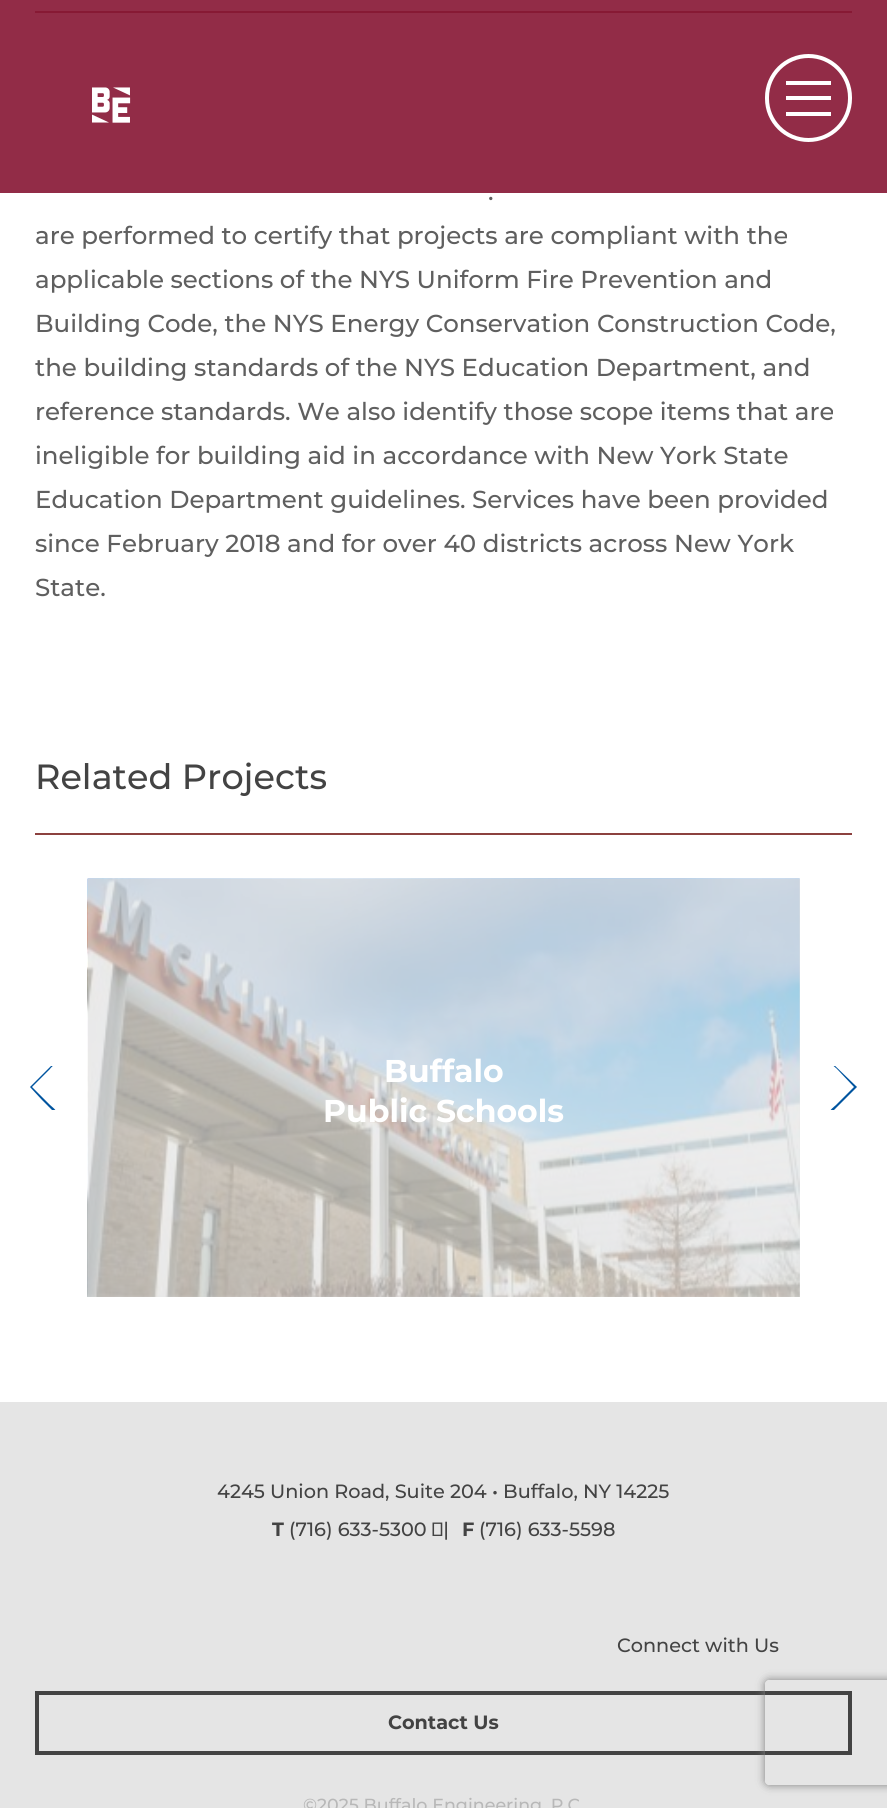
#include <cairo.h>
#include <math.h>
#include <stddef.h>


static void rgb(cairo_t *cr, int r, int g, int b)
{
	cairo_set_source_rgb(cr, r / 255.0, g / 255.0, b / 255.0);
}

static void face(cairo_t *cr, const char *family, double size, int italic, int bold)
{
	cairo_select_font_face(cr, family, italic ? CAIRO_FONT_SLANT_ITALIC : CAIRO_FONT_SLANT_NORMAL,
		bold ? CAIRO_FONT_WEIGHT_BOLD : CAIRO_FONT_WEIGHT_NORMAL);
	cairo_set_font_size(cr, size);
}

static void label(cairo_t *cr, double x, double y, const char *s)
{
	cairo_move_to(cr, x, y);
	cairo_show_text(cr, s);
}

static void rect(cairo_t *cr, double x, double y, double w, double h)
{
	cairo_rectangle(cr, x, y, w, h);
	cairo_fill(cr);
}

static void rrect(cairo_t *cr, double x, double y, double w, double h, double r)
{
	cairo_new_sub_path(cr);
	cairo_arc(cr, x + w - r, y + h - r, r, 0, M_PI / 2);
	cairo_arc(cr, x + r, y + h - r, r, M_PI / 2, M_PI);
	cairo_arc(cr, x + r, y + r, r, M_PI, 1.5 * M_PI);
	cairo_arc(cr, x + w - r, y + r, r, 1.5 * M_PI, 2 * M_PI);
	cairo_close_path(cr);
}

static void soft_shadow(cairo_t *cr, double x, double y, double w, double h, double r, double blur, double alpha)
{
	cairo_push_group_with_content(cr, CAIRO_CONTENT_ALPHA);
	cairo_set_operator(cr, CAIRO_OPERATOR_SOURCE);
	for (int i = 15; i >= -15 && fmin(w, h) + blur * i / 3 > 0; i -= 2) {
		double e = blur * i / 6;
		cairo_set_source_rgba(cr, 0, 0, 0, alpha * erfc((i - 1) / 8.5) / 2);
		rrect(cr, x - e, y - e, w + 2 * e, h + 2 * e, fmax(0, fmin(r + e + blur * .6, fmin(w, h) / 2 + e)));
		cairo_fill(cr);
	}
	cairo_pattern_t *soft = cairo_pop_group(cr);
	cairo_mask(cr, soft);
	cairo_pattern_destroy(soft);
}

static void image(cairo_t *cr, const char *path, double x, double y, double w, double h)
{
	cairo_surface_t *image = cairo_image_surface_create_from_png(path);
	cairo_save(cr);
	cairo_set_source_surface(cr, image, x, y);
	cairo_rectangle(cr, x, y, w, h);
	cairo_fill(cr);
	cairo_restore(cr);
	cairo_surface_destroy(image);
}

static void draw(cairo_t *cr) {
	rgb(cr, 229, 229, 229);
	cairo_paint(cr);
	rgb(cr, 255, 255, 255);
	rect(cr, 0, 0, 887, 1402);
	rgb(cr, 140, 65, 63);
	rect(cr, 35, 11, 817, 2);
	cairo_set_source_rgba(cr, 0.529, 0.086, 0.2, 0.9);
	rect(cr, 0, 0, 887, 193);
	image(cr, "image0.png", 92, 87, 39, 36);
	rrect(cr, 767, 56, 83, 84, 41.5);
	rgb(cr, 255, 255, 255);
	cairo_set_line_width(cr, 4);
	cairo_stroke(cr);
	rect(cr, 786, 81, 45, 4);
	rect(cr, 786, 96, 45, 4);
	rect(cr, 786, 112, 45, 4);
	face(cr, "Montserrat Medium", 24.5, 0, 0);
	rgb(cr, 95, 95, 95);
	label(cr, 488, 200, ".");
	label(cr, 35, 244, "are performed to certify that projects are compliant with the");
	label(cr, 35, 288, "applicable sections of the NYS Uniform Fire Prevention and");
	label(cr, 35, 332, "Building Code, the NYS Energy Conservation Construction Code,");
	label(cr, 35, 376, "the building standards of the NYS Education Department, and");
	label(cr, 35, 420, "reference standards. We also identify those scope items that are");
	label(cr, 35, 464, "ineligible for building aid in accordance with New York State");
	label(cr, 35, 508, "Education Department guidelines. Services have been provided");
	label(cr, 35, 552, "since February 2018 and for over 40 districts across New York");
	label(cr, 35, 596, "State.");
	rgb(cr, 140, 65, 63);
	rect(cr, 35, 833, 817, 2);
	face(cr, "Montserrat Medium", 35, 0, 0);
	rgb(cr, 67, 67, 67);
	label(cr, 35, 789, "Related Projects");
	cairo_save(cr);
	cairo_rectangle(cr, 18, 1066, 52, 44);
	cairo_clip(cr);
	rgb(cr, 0, 84, 159);
	cairo_new_path(cr);
	cairo_move_to(cr, 42, 1100);
	cairo_line_to(cr, 30, 1087);
	cairo_line_to(cr, 56, 1061);
	cairo_curve_to(cr, 59, 1061, 50, 1068, 50, 1069);
	cairo_line_to(cr, 32, 1087);
	cairo_line_to(cr, 50, 1105);
	cairo_curve_to(cr, 51, 1106, 58, 1111, 56, 1113);
	cairo_line_to(cr, 55, 1113);
	cairo_close_path(cr);
	cairo_fill(cr);
	cairo_restore(cr);
	rgb(cr, 229, 229, 229);
	rect(cr, 88, 879, 712, 418);
	image(cr, "image1.png", 87, 878, 713, 419);
	face(cr, "Montserrat", 31.5, 0, 1);
	rgb(cr, 255, 255, 255);
	label(cr, 384, 1082, "Buffalo");
	label(cr, 323, 1122, "Public Schools");
	cairo_save(cr);
	cairo_rectangle(cr, 817, 1066, 53, 44);
	cairo_clip(cr);
	rgb(cr, 0, 84, 159);
	cairo_new_path(cr);
	cairo_move_to(cr, 844, 1100);
	cairo_line_to(cr, 857, 1087);
	cairo_line_to(cr, 830, 1061);
	cairo_curve_to(cr, 827, 1061, 836, 1068, 837, 1069);
	cairo_line_to(cr, 854, 1087);
	cairo_line_to(cr, 836, 1105);
	cairo_curve_to(cr, 835, 1106, 828, 1111, 830, 1113);
	cairo_line_to(cr, 831, 1113);
	cairo_close_path(cr);
	cairo_fill(cr);
	cairo_restore(cr);
	face(cr, "Montserrat Medium", 19.25, 0, 0);
	rgb(cr, 67, 67, 67);
	label(cr, 217, 1498, "4245 Union Road, Suite 204 • Buffalo, NY 14225");
	face(cr, "Montserrat", 19.25, 0, 1);
	label(cr, 272, 1536, "T");
	face(cr, "Montserrat Medium", 19.25, 0, 0);
	label(cr, 289, 1536, "(716) 633-5300  |");
	face(cr, "Montserrat", 19.25, 0, 1);
	label(cr, 462, 1536, "F");
	face(cr, "Montserrat Medium", 19.25, 0, 0);
	label(cr, 479, 1536, "(716) 633-5598");
	label(cr, 617, 1652, "Connect with Us");
	cairo_rectangle(cr, 37, 1693, 813, 60);
	cairo_stroke(cr);
	face(cr, "Montserrat", 19.25, 0, 1);
	label(cr, 388, 1729, "Contact Us");
	face(cr, "Montserrat Medium", 17.5, 0, 0);
	rgb(cr, 184, 184, 184);
	label(cr, 303, 1811, "©2025 Buffalo Engineering, P.C");
	cairo_save(cr);
	cairo_set_fill_rule(cr, CAIRO_FILL_RULE_EVEN_ODD);
	cairo_new_path(cr);
	cairo_move_to(cr, 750, 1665);
	cairo_line_to(cr, 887, 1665);
	cairo_line_to(cr, 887, 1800);
	cairo_line_to(cr, 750, 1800);
	cairo_close_path(cr);
	cairo_move_to(cr, 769, 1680);
	cairo_line_to(cr, 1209, 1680);
	cairo_curve_to(cr, 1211, 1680, 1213, 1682, 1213, 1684);
	cairo_line_to(cr, 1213, 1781);
	cairo_curve_to(cr, 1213, 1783, 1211, 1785, 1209, 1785);
	cairo_line_to(cr, 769, 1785);
	cairo_curve_to(cr, 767, 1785, 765, 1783, 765, 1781);
	cairo_line_to(cr, 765, 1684);
	cairo_curve_to(cr, 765, 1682, 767, 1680, 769, 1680);
	cairo_close_path(cr);
	cairo_clip(cr);
	rgb(cr, 128, 128, 128);
	soft_shadow(cr, 765, 1680, 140, 105, 4, 4.5, 1);
	cairo_restore(cr);
}

int main(void) {
	cairo_surface_t *surface = cairo_image_surface_create(CAIRO_FORMAT_RGB24, 887, 1808);
	cairo_t *cr = cairo_create(surface);
	cairo_font_options_t *options = cairo_font_options_create();
	cairo_font_options_set_hint_metrics(options, CAIRO_HINT_METRICS_OFF);
	cairo_font_options_set_hint_style(options, CAIRO_HINT_STYLE_NONE);
	cairo_set_font_options(cr, options);
	cairo_set_miter_limit(cr, 4);
	draw(cr);
	cairo_surface_write_to_png(surface, "render.png");
	cairo_font_options_destroy(options);
	cairo_destroy(cr);
	cairo_surface_destroy(surface);
	return 0;
}
